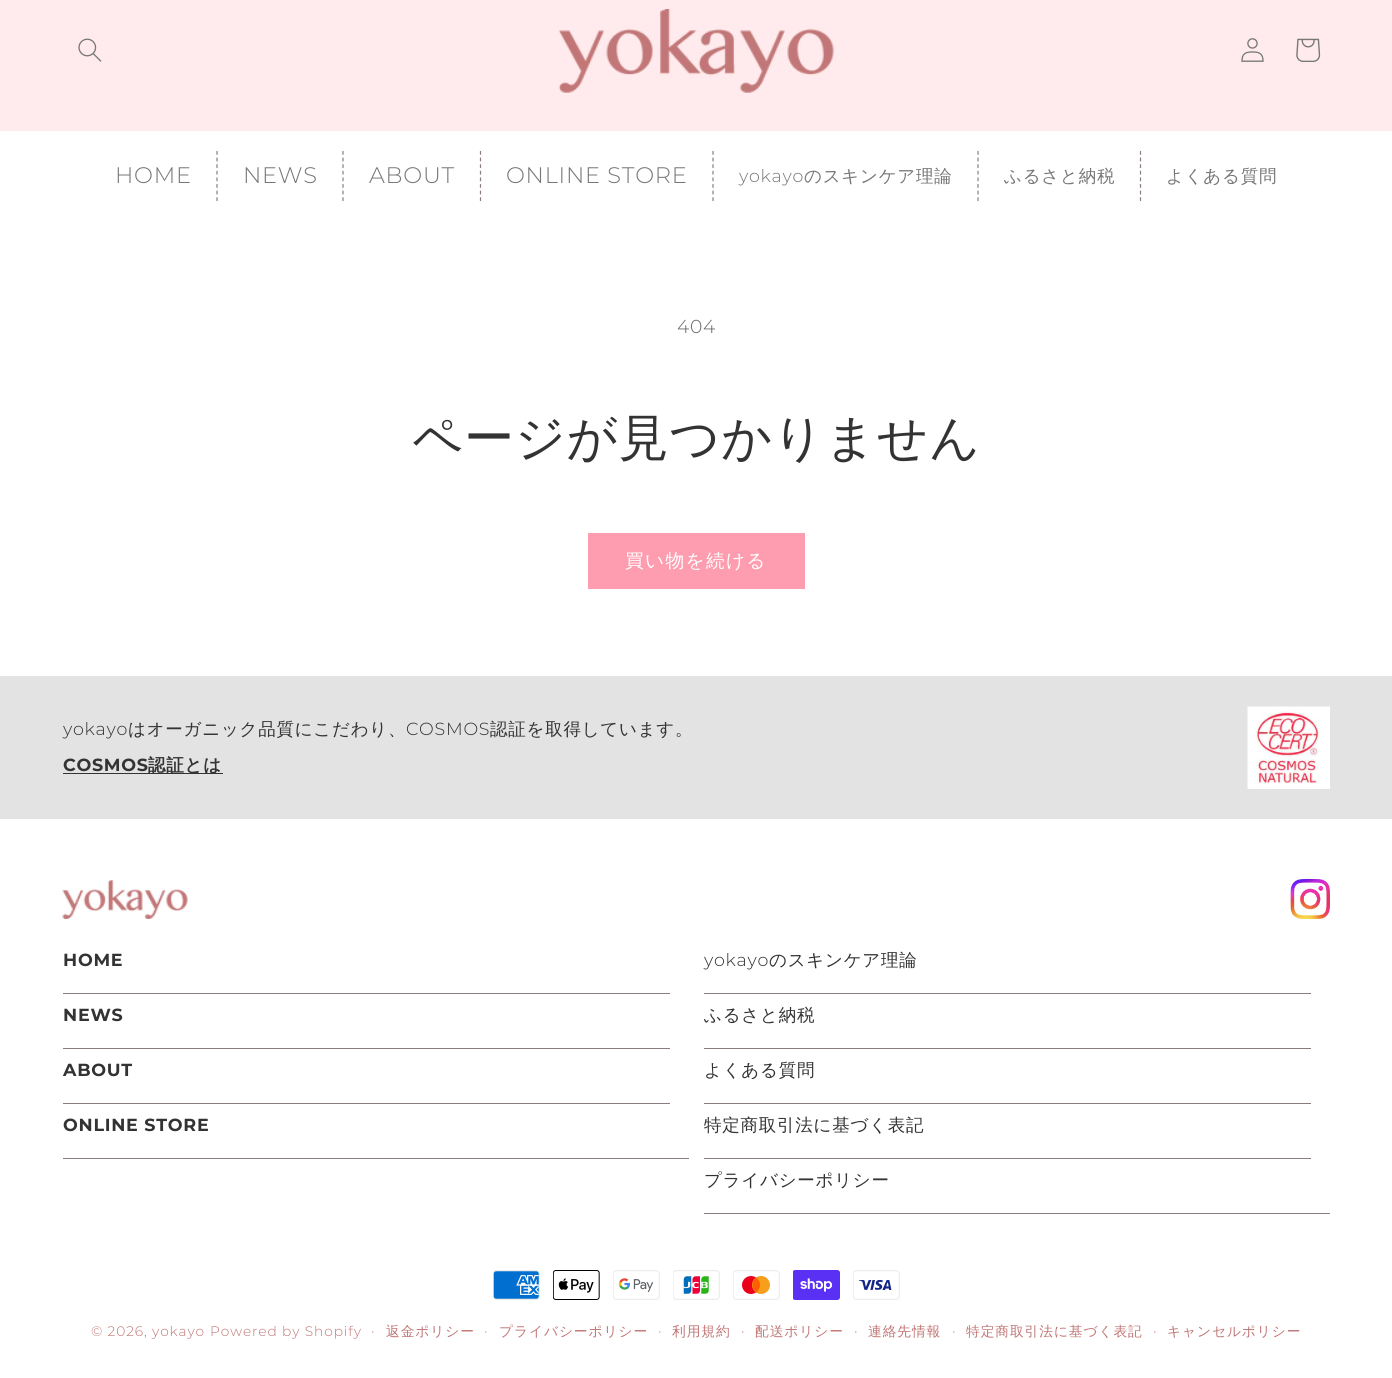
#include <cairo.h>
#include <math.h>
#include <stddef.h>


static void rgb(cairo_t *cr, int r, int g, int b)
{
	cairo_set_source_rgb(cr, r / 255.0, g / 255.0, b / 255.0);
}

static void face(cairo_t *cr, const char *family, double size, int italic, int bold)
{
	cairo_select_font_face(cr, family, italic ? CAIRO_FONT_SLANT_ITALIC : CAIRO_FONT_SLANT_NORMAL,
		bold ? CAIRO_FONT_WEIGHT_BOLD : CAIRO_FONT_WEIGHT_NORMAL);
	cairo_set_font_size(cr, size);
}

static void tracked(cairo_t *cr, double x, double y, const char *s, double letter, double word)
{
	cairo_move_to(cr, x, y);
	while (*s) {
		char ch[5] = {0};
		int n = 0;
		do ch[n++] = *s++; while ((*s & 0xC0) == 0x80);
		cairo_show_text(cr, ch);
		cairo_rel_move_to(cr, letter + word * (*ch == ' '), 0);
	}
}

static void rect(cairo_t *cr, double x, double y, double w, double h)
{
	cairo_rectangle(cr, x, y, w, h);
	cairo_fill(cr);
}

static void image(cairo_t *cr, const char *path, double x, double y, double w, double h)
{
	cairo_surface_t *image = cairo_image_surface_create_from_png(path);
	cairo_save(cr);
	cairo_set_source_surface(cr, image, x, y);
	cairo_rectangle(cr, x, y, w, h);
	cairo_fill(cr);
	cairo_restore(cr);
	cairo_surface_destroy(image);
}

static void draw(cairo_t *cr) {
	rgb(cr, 255, 255, 255);
	cairo_paint(cr);
	rgb(cr, 255, 235, 237);
	rect(cr, 0, 0, 1392, 131);
	image(cr, "image0.png", 78, 38, 24, 24);
	image(cr, "image1.png", 558, 9, 276, 84);
	image(cr, "image2.png", 1241, 38, 23, 24);
	image(cr, "image3.png", 1296, 38, 25, 24);
	cairo_new_path(cr);
	cairo_move_to(cr, 217, 151);
	cairo_line_to(cr, 217, 201);
	rgb(cr, 140, 125, 125);
	cairo_set_line_width(cr, 1.2);
	cairo_set_dash(cr, (double[]){3.75, 2.86}, 2, 0);
	cairo_stroke(cr);
	face(cr, "Montserrat Light", 22.5, 0, 0);
	rgb(cr, 119, 119, 119);
	tracked(cr, 115, 183, "HOME", 0.75, 0);
	cairo_new_path(cr);
	cairo_move_to(cr, 343, 151);
	cairo_line_to(cr, 343, 201);
	rgb(cr, 140, 125, 125);
	cairo_stroke(cr);
	rgb(cr, 119, 119, 119);
	tracked(cr, 243, 183, "NEWS", 0.75, 0);
	cairo_new_path(cr);
	cairo_move_to(cr, 480.5, 151);
	cairo_line_to(cr, 480.5, 201);
	rgb(cr, 140, 125, 125);
	cairo_stroke(cr);
	rgb(cr, 119, 119, 119);
	tracked(cr, 369, 183, "ABOUT", 0.75, 0);
	cairo_new_path(cr);
	cairo_move_to(cr, 713, 151);
	cairo_line_to(cr, 713, 201);
	rgb(cr, 140, 125, 125);
	cairo_stroke(cr);
	rgb(cr, 119, 119, 119);
	tracked(cr, 506, 183, "ONLINE STORE", 0.75, 0);
	cairo_new_path(cr);
	cairo_move_to(cr, 978, 151);
	cairo_line_to(cr, 978, 201);
	rgb(cr, 140, 125, 125);
	cairo_stroke(cr);
	face(cr, "Montserrat Light", 17.5, 0, 0);
	rgb(cr, 119, 119, 119);
	tracked(cr, 739, 182, "yokayo", 0.75, 0);
	face(cr, "WenQuanYi Zen Hei Medium", 17.5, 0, 0);
	tracked(cr, 804, 182, "のスキンケア理論", 0.75, 0);
	cairo_new_path(cr);
	cairo_move_to(cr, 1140.5, 151);
	cairo_line_to(cr, 1140.5, 201);
	rgb(cr, 140, 125, 125);
	cairo_stroke(cr);
	rgb(cr, 119, 119, 119);
	tracked(cr, 1004, 182, "ふるさと納税", 0.75, 0);
	tracked(cr, 1166, 182, "よくある質問", 0.75, 0);
	face(cr, "Montserrat Light", 18.75, 0, 0);
	rgb(cr, 102, 102, 102);
	tracked(cr, 677, 333, "404", 0.75, 0);
	face(cr, "WenQuanYi Zen Hei Medium", 50, 0, 0);
	rgb(cr, 51, 51, 51);
	tracked(cr, 412, 455, "ページが見つかりません", 0.75, 0);
	rgb(cr, 253, 157, 175);
	rect(cr, 588, 533, 217, 56);
	face(cr, "WenQuanYi Zen Hei Medium", 18.75, 0, 0);
	rgb(cr, 255, 255, 255);
	tracked(cr, 625, 567, "買い物を続ける", 1.25, 0);
	rgb(cr, 227, 227, 227);
	rect(cr, 0, 676, 1392, 143);
	face(cr, "Montserrat Light", 17.5, 0, 0);
	rgb(cr, 51, 51, 51);
	tracked(cr, 63, 735, "yokayo", 0.75, 0);
	face(cr, "WenQuanYi Zen Hei Medium", 17.5, 0, 0);
	tracked(cr, 128, 735, "はオーガニック品質にこだわり、", 0.75, 0);
	face(cr, "Montserrat Light", 17.5, 0, 0);
	tracked(cr, 406, 735, "COSMOS", 0.75, 0);
	face(cr, "WenQuanYi Zen Hei Medium", 17.5, 0, 0);
	tracked(cr, 490, 735, "認証を取得しています。", 0.75, 0);
	face(cr, "Montserrat", 17.5, 0, 1);
	tracked(cr, 63, 771, "COSMOS", 0.75, 0);
	rect(cr, 63, 773, 160, 1);
	face(cr, "WenQuanYi Zen Hei", 17.5, 0, 1);
	tracked(cr, 148, 771, "認証とは", 0.75, 0);
	image(cr, "image4.png", 1247, 706, 83, 83);
	image(cr, "image5.png", 62, 880, 126, 39);
	image(cr, "image6.png", 1290, 879, 40, 40);
	rgb(cr, 140, 125, 125);
	rect(cr, 63, 993, 607, 1);
	face(cr, "Montserrat", 17.5, 0, 1);
	rgb(cr, 51, 51, 51);
	tracked(cr, 63, 966, "HOME", 0.75, 0);
	rgb(cr, 140, 125, 125);
	rect(cr, 63, 1048, 607, 1);
	rgb(cr, 51, 51, 51);
	tracked(cr, 63, 1021, "NEWS", 0.75, 0);
	rgb(cr, 140, 125, 125);
	rect(cr, 63, 1103, 607, 1);
	rgb(cr, 51, 51, 51);
	tracked(cr, 63, 1076, "ABOUT", 0.75, 0);
	rgb(cr, 140, 125, 125);
	rect(cr, 63, 1158, 626, 1);
	rgb(cr, 51, 51, 51);
	tracked(cr, 63, 1131, "ONLINE STORE", 0.75, 0);
	rgb(cr, 140, 125, 125);
	rect(cr, 704, 993, 607, 1);
	face(cr, "Montserrat Light", 17.5, 0, 0);
	rgb(cr, 51, 51, 51);
	tracked(cr, 704, 966, "yokayo", 0.75, 0);
	face(cr, "WenQuanYi Zen Hei Medium", 17.5, 0, 0);
	tracked(cr, 769, 966, "のスキンケア理論", 0.75, 0);
	rgb(cr, 140, 125, 125);
	rect(cr, 704, 1048, 607, 1);
	rgb(cr, 51, 51, 51);
	tracked(cr, 704, 1021, "ふるさと納税", 0.75, 0);
	rgb(cr, 140, 125, 125);
	rect(cr, 704, 1103, 607, 1);
	rgb(cr, 51, 51, 51);
	tracked(cr, 704, 1076, "よくある質問", 0.75, 0);
	rgb(cr, 140, 125, 125);
	rect(cr, 704, 1158, 607, 1);
	rgb(cr, 51, 51, 51);
	tracked(cr, 704, 1131, "特定商取引法に基づく表記", 0.75, 0);
	rgb(cr, 140, 125, 125);
	rect(cr, 704, 1213, 626, 1);
	rgb(cr, 51, 51, 51);
	tracked(cr, 704, 1186, "プライバシーポリシー", 0.75, 0);
	image(cr, "image7.png", 493, 1270, 47, 30);
	image(cr, "image8.png", 553, 1270, 47, 30);
	image(cr, "image9.png", 613, 1270, 47, 30);
	image(cr, "image10.png", 673, 1270, 47, 30);
	image(cr, "image11.png", 733, 1270, 47, 30);
	image(cr, "image12.png", 793, 1270, 47, 30);
	image(cr, "image13.png", 853, 1270, 47, 30);
	face(cr, "Montserrat Light", 13.75, 0, 0);
	rgb(cr, 193, 118, 118);
	tracked(cr, 91, 1336, "© 2026, yokayo", 0.9, 0);
	tracked(cr, 210, 1336, "Powered by Shopify", 0.9, 0);
	face(cr, "Montserrat Light", 15, 0, 0);
	tracked(cr, 371, 1336, "·", 0.9, 0);
	face(cr, "WenQuanYi Zen Hei Medium", 13.75, 0, 0);
	tracked(cr, 386, 1336, "返金ポリシー", 0.9, 0);
	face(cr, "Montserrat Light", 15, 0, 0);
	tracked(cr, 484, 1336, "·", 0.9, 0);
	face(cr, "WenQuanYi Zen Hei Medium", 13.75, 0, 0);
	tracked(cr, 499, 1336, "プライバシーポリシー", 0.9, 0);
	face(cr, "Montserrat Light", 15, 0, 0);
	tracked(cr, 658, 1336, "·", 0.9, 0);
	face(cr, "WenQuanYi Zen Hei Medium", 13.75, 0, 0);
	tracked(cr, 672, 1336, "利用規約", 0.9, 0);
	face(cr, "Montserrat Light", 15, 0, 0);
	tracked(cr, 741, 1336, "·", 0.9, 0);
	face(cr, "WenQuanYi Zen Hei Medium", 13.75, 0, 0);
	tracked(cr, 755, 1336, "配送ポリシー", 0.9, 0);
	face(cr, "Montserrat Light", 15, 0, 0);
	tracked(cr, 854, 1336, "·", 0.9, 0);
	face(cr, "WenQuanYi Zen Hei Medium", 13.75, 0, 0);
	tracked(cr, 868, 1336, "連絡先情報", 0.9, 0);
	face(cr, "Montserrat Light", 15, 0, 0);
	tracked(cr, 952, 1336, "·", 0.9, 0);
	face(cr, "WenQuanYi Zen Hei Medium", 13.75, 0, 0);
	tracked(cr, 966, 1336, "特定商取引法に基づく表記", 0.9, 0);
	face(cr, "Montserrat Light", 15, 0, 0);
	tracked(cr, 1153, 1336, "·", 0.9, 0);
	face(cr, "WenQuanYi Zen Hei Medium", 13.75, 0, 0);
	tracked(cr, 1167, 1336, "キャンセルポリシー", 0.9, 0);
}

int main(void) {
	cairo_surface_t *surface = cairo_image_surface_create(CAIRO_FORMAT_RGB24, 1392, 1378);
	cairo_t *cr = cairo_create(surface);
	cairo_font_options_t *options = cairo_font_options_create();
	cairo_font_options_set_hint_metrics(options, CAIRO_HINT_METRICS_OFF);
	cairo_font_options_set_hint_style(options, CAIRO_HINT_STYLE_NONE);
	cairo_set_font_options(cr, options);
	cairo_set_miter_limit(cr, 4);
	draw(cr);
	cairo_surface_write_to_png(surface, "render.png");
	cairo_font_options_destroy(options);
	cairo_destroy(cr);
	cairo_surface_destroy(surface);
	return 0;
}
